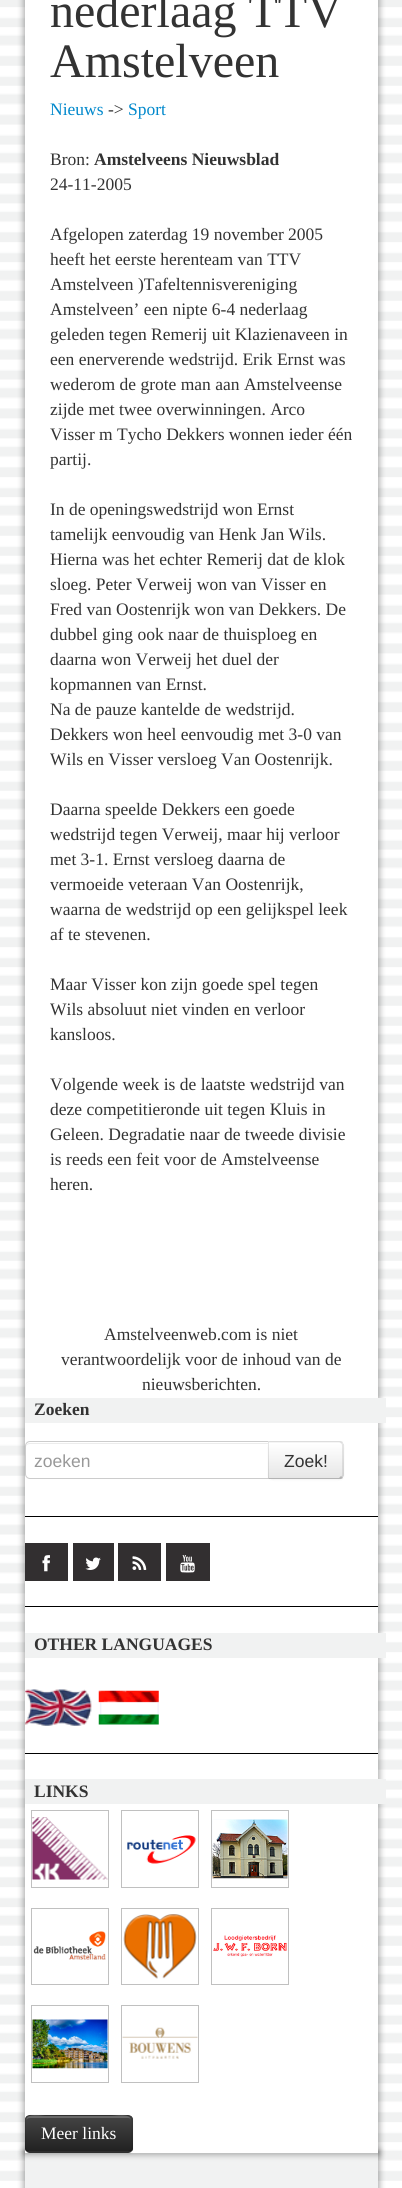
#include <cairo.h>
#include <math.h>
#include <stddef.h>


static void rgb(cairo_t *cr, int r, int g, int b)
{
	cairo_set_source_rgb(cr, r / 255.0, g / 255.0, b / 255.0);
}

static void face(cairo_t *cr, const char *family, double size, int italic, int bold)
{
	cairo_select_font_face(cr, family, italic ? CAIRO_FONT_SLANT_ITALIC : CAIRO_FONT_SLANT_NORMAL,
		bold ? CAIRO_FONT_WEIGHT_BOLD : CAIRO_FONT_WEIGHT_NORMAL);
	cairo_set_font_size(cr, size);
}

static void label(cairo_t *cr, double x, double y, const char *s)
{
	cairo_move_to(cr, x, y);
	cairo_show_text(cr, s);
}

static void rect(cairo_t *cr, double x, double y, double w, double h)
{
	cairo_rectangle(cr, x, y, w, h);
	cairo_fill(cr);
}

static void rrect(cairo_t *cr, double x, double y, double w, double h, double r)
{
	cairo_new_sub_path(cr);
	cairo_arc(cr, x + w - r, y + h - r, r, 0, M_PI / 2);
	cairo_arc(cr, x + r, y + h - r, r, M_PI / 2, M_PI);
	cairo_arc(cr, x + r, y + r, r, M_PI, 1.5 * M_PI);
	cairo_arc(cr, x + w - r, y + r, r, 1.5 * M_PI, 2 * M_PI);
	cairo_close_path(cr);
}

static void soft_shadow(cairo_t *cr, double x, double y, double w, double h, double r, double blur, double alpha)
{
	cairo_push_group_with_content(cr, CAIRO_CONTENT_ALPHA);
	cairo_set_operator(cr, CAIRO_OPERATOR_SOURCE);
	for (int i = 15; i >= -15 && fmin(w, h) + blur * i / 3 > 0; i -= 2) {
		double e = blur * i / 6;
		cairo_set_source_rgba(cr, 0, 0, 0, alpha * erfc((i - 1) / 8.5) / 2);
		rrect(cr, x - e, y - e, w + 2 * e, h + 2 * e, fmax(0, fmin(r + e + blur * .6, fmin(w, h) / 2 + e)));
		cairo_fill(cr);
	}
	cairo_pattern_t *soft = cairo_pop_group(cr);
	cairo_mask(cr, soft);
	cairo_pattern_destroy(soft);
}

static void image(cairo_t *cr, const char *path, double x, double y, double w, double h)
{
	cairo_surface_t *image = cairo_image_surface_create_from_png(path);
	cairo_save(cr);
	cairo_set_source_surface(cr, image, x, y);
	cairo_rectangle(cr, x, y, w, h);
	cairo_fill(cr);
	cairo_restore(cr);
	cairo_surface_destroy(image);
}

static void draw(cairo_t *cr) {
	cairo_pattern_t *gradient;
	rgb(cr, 255, 255, 255);
	cairo_paint(cr);
	image(cr, "image0.png", 0, 0, 402, 2181);
	rgb(cr, 0, 0, 0);
	soft_shadow(cr, 23, 2150, 357, 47, 0, 3, 0.3);
	rgb(cr, 241, 242, 242);
	rect(cr, 25, 2153, 353, 35);
	rgb(cr, 0, 0, 0);
	soft_shadow(cr, 23, -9, 357, 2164, 0, 3, 0.3);
	rgb(cr, 255, 255, 255);
	rect(cr, 25, 0, 353, 2153);
	face(cr, "Liberation Serif", 48, 0, 0);
	rgb(cr, 51, 51, 51);
	label(cr, 50, 27, "nederlaag TTV");
	label(cr, 50, 77, "Amstelveen");
	face(cr, "Liberation Serif", 17.5, 0, 0);
	rgb(cr, 0, 136, 204);
	label(cr, 50, 115, "Nieuws");
	rgb(cr, 51, 51, 51);
	label(cr, 108, 115, "->");
	rgb(cr, 0, 136, 204);
	label(cr, 128, 115, "Sport");
	rgb(cr, 51, 51, 51);
	label(cr, 50, 165, "Bron:");
	face(cr, "Liberation Serif", 17.5, 0, 1);
	label(cr, 94, 165, "Amstelveens Nieuwsblad");
	face(cr, "Liberation Serif", 17.5, 0, 0);
	label(cr, 50, 190, "24-11-2005");
	label(cr, 50, 240, "Afgelopen zaterdag 19 november 2005");
	label(cr, 50, 265, "heeft het eerste herenteam van TTV");
	label(cr, 50, 290, "Amstelveen )Tafeltennisvereniging");
	label(cr, 50, 315, "Amstelveen’ een nipte 6-4 nederlaag");
	label(cr, 50, 340, "geleden tegen Remerij uit Klazienaveen in");
	label(cr, 50, 365, "een enerverende wedstrijd. Erik Ernst was");
	label(cr, 50, 390, "wederom de grote man aan Amstelveense");
	label(cr, 50, 415, "zijde met twee overwinningen. Arco");
	label(cr, 50, 440, "Visser m Tycho Dekkers wonnen ieder één");
	label(cr, 50, 465, "partij.");
	label(cr, 50, 515, "In de openingswedstrijd won Ernst");
	label(cr, 50, 540, "tamelijk eenvoudig van Henk Jan Wils.");
	label(cr, 50, 565, "Hierna was het echter Remerij dat de klok");
	label(cr, 50, 590, "sloeg. Peter Verweij won van Visser en");
	label(cr, 50, 615, "Fred van Oostenrijk won van Dekkers. De");
	label(cr, 50, 640, "dubbel ging ook naar de thuisploeg en");
	label(cr, 50, 665, "daarna won Verweij het duel der");
	label(cr, 50, 690, "kopmannen van Ernst.");
	label(cr, 50, 715, "Na de pauze kantelde de wedstrijd.");
	label(cr, 50, 740, "Dekkers won heel eenvoudig met 3-0 van");
	label(cr, 50, 765, "Wils en Visser versloeg Van Oostenrijk.");
	label(cr, 50, 815, "Daarna speelde Dekkers een goede");
	label(cr, 50, 840, "wedstrijd tegen Verweij, maar hij verloor");
	label(cr, 50, 865, "met 3-1. Ernst versloeg daarna de");
	label(cr, 50, 890, "vermoeide veteraan Van Oostenrijk,");
	label(cr, 50, 915, "waarna de wedstrijd op een gelijkspel leek");
	label(cr, 50, 940, "af te stevenen.");
	label(cr, 50, 990, "Maar Visser kon zijn goede spel tegen");
	label(cr, 50, 1015, "Wils absoluut niet vinden en verloor");
	label(cr, 50, 1040, "kansloos.");
	label(cr, 50, 1090, "Volgende week is de laatste wedstrijd van");
	label(cr, 50, 1115, "deze competitieronde uit tegen Kluis in");
	label(cr, 50, 1140, "Geleen. Degradatie naar de tweede divisie");
	label(cr, 50, 1165, "is reeds een feit voor de Amstelveense");
	label(cr, 50, 1190, "heren.");
	label(cr, 104, 1340, "Amstelveenweb.com is niet");
	label(cr, 61, 1365, "verantwoordelijk voor de inhoud van de");
	label(cr, 142, 1390, "nieuwsberichten.");
	rgb(cr, 241, 242, 242);
	rect(cr, 25, 1398, 361, 25);
	face(cr, "Liberation Serif", 17.5, 0, 1);
	rgb(cr, 51, 51, 51);
	label(cr, 34, 1415, "Zoeken");
	rgb(cr, 236, 236, 236);
	cairo_new_path(cr);
	cairo_move_to(cr, 30, 1444);
	cairo_line_to(cr, 268, 1444);
	cairo_line_to(cr, 268, 1443);
	cairo_line_to(cr, 30, 1443);
	cairo_curve_to(cr, 27, 1443, 26, 1445, 26, 1448);
	cairo_curve_to(cr, 26, 1445, 28, 1444, 30, 1444);
	cairo_close_path(cr);
	cairo_fill(cr);
	cairo_new_path(cr);
	cairo_move_to(cr, 30, 1441.5);
	cairo_line_to(cr, 268.5, 1441.5);
	cairo_line_to(cr, 268.5, 1478.5);
	cairo_line_to(cr, 30, 1478.5);
	cairo_curve_to(cr, 27.5, 1478.5, 25.5, 1476.5, 25.5, 1474);
	cairo_line_to(cr, 25.5, 1446);
	cairo_curve_to(cr, 25.5, 1443.5, 27.5, 1441.5, 30, 1441.5);
	cairo_close_path(cr);
	rgb(cr, 204, 204, 204);
	cairo_set_line_width(cr, 1);
	cairo_stroke(cr);
	face(cr, "Liberation Sans", 17.5, 0, 0);
	rgb(cr, 153, 153, 153);
	label(cr, 34, 1467, "zoeken");
	rgb(cr, 0, 0, 0);
	soft_shadow(cr, 268, 1443, 76, 37, 5, 1, 0.05);
	rgb(cr, 245, 245, 245);
	cairo_new_path(cr);
	cairo_move_to(cr, 268, 1441);
	cairo_line_to(cr, 339, 1441);
	cairo_curve_to(cr, 342, 1441, 344, 1443, 344, 1446);
	cairo_line_to(cr, 344, 1474);
	cairo_curve_to(cr, 344, 1477, 342, 1479, 339, 1479);
	cairo_line_to(cr, 268, 1479);
	cairo_close_path(cr);
	cairo_fill(cr);
	cairo_save(cr);
	cairo_new_path(cr);
	cairo_move_to(cr, 268, 1441);
	cairo_line_to(cr, 339, 1441);
	cairo_curve_to(cr, 342, 1441, 344, 1443, 344, 1446);
	cairo_line_to(cr, 344, 1474);
	cairo_curve_to(cr, 344, 1477, 342, 1479, 339, 1479);
	cairo_line_to(cr, 268, 1479);
	cairo_close_path(cr);
	cairo_clip(cr);
	gradient = cairo_pattern_create_linear(306, 1443, 306, 1478);
	cairo_pattern_add_color_stop_rgba(gradient, 0, 1, 1, 1, 1);
	cairo_pattern_add_color_stop_rgba(gradient, 1, 0.902, 0.902, 0.902, 1);
	cairo_set_source(cr, gradient);
	cairo_pattern_destroy(gradient);
	rect(cr, 268, 1443, 76, 35);
	cairo_restore(cr);
	cairo_set_source_rgba(cr, 1, 1, 1, 0.2);
	cairo_new_path(cr);
	cairo_move_to(cr, 269, 1444);
	cairo_line_to(cr, 339, 1444);
	cairo_curve_to(cr, 343, 1444, 342, 1450, 342, 1452);
	cairo_line_to(cr, 342, 1477);
	cairo_curve_to(cr, 342, 1476, 343, 1475, 343, 1474);
	cairo_line_to(cr, 343, 1447);
	cairo_curve_to(cr, 343, 1445, 341, 1443, 339, 1443);
	cairo_line_to(cr, 269, 1443);
	cairo_close_path(cr);
	cairo_fill(cr);
	cairo_set_source_rgba(cr, 0, 0, 0, 0.1);
	cairo_new_path(cr);
	cairo_move_to(cr, 269, 1442);
	cairo_line_to(cr, 269, 1443);
	cairo_line_to(cr, 268, 1441);
	cairo_line_to(cr, 341, 1441);
	cairo_line_to(cr, 343, 1442);
	cairo_line_to(cr, 341, 1444);
	cairo_curve_to(cr, 341, 1443, 340, 1442, 339, 1442);
	cairo_close_path(cr);
	cairo_fill(cr);
	cairo_new_path(cr);
	cairo_move_to(cr, 344, 1475.5);
	cairo_line_to(cr, 342.5, 1477.5);
	cairo_line_to(cr, 341.5, 1476.5);
	cairo_curve_to(cr, 342, 1475.5, 342, 1475, 342, 1474);
	cairo_line_to(cr, 342, 1446);
	cairo_curve_to(cr, 342, 1445, 342, 1444.5, 341.5, 1443.5);
	cairo_line_to(cr, 342.5, 1442.5);
	cairo_line_to(cr, 344, 1444.5);
	cairo_close_path(cr);
	cairo_fill(cr);
	rgb(cr, 179, 179, 179);
	cairo_new_path(cr);
	cairo_move_to(cr, 268, 1479);
	cairo_line_to(cr, 269, 1477);
	cairo_line_to(cr, 269, 1478);
	cairo_line_to(cr, 339, 1478);
	cairo_line_to(cr, 341, 1476);
	cairo_line_to(cr, 343, 1478);
	cairo_line_to(cr, 341, 1479);
	cairo_close_path(cr);
	cairo_fill(cr);
	cairo_set_source_rgba(cr, 0, 0, 0, 0.1);
	cairo_new_path(cr);
	cairo_move_to(cr, 268, 1478);
	cairo_line_to(cr, 268, 1442);
	cairo_line_to(cr, 269, 1443);
	cairo_line_to(cr, 269, 1477);
	cairo_close_path(cr);
	cairo_fill(cr);
	rgb(cr, 51, 51, 51);
	label(cr, 284, 1467, "Zoek!");
	rgb(cr, 0, 0, 0);
	rect(cr, 25, 1516, 353, 1);
	rgb(cr, 50, 47, 48);
	rect(cr, 25, 1543, 43, 38);
	image(cr, "image1.png", 42, 1555, 8, 17);
	rect(cr, 73, 1543, 41, 38);
	image(cr, "image2.png", 85, 1557, 16, 13);
	rect(cr, 118, 1543, 43, 38);
	image(cr, "image3.png", 132, 1556, 15, 14);
	rect(cr, 166, 1543, 44, 38);
	image(cr, "image4.png", 180, 1555, 15, 18);
	rgb(cr, 0, 0, 0);
	rect(cr, 25, 1606, 353, 1);
	rgb(cr, 241, 242, 242);
	rect(cr, 25, 1633, 361, 25);
	face(cr, "Liberation Serif", 17.5, 0, 1);
	rgb(cr, 51, 51, 51);
	label(cr, 34, 1650, "OTHER LANGUAGES");
	image(cr, "image5.png", 25, 1689, 67, 37);
	image(cr, "image6.png", 98, 1690, 61, 35);
	rgb(cr, 0, 0, 0);
	rect(cr, 25, 1753, 353, 1);
	rgb(cr, 241, 242, 242);
	rect(cr, 25, 1779, 361, 25);
	rgb(cr, 51, 51, 51);
	label(cr, 34, 1797, "LINKS");
	image(cr, "image7.png", 32, 1817, 76, 63);
	cairo_rectangle(cr, 31.5, 1810.5, 77, 77);
	rgb(cr, 192, 192, 192);
	cairo_stroke(cr);
	image(cr, "image8.png", 127, 1835, 69, 29);
	cairo_rectangle(cr, 121.5, 1810.5, 77, 77);
	cairo_stroke(cr);
	image(cr, "image9.png", 212, 1819, 76, 60);
	cairo_rectangle(cr, 211.5, 1810.5, 77, 77);
	cairo_stroke(cr);
	image(cr, "image10.png", 33, 1931, 73, 29);
	cairo_rectangle(cr, 31.5, 1908.5, 77, 76);
	cairo_stroke(cr);
	image(cr, "image11.png", 123, 1914, 74, 65);
	cairo_rectangle(cr, 121.5, 1908.5, 77, 76);
	cairo_stroke(cr);
	image(cr, "image12.png", 213, 1935, 74, 22);
	cairo_rectangle(cr, 211.5, 1908.5, 77, 76);
	cairo_stroke(cr);
	image(cr, "image13.png", 32, 2019, 76, 50);
	cairo_rectangle(cr, 31.5, 2005.5, 77, 77);
	cairo_stroke(cr);
	image(cr, "image14.png", 122, 2027, 76, 32);
	cairo_rectangle(cr, 121.5, 2005.5, 77, 77);
	cairo_stroke(cr);
	rgb(cr, 0, 0, 0);
	soft_shadow(cr, 25, 2116, 108, 38, 5, 1, 0.05);
	rgb(cr, 54, 54, 54);
	rrect(cr, 25, 2115, 108, 38, 5);
	cairo_fill(cr);
	cairo_save(cr);
	rrect(cr, 25, 2115, 108, 38, 5);
	cairo_clip(cr);
	gradient = cairo_pattern_create_linear(79, 2116, 79, 2151);
	cairo_pattern_add_color_stop_rgba(gradient, 0, 0.267, 0.267, 0.267, 1);
	cairo_pattern_add_color_stop_rgba(gradient, 1, 0.133, 0.133, 0.133, 1);
	cairo_set_source(cr, gradient);
	cairo_pattern_destroy(gradient);
	rect(cr, 25, 2116, 108, 35);
	cairo_restore(cr);
	cairo_set_source_rgba(cr, 1, 1, 1, 0.2);
	cairo_new_path(cr);
	cairo_move_to(cr, 30, 2118);
	cairo_line_to(cr, 128, 2118);
	cairo_curve_to(cr, 130, 2118, 131, 2119, 131, 2121);
	cairo_curve_to(cr, 131, 2112, 115, 2116, 111, 2116);
	cairo_line_to(cr, 46, 2116);
	cairo_curve_to(cr, 42, 2116, 26, 2112, 26, 2121);
	cairo_curve_to(cr, 26, 2119, 28, 2118, 30, 2118);
	cairo_close_path(cr);
	cairo_fill(cr);
	cairo_new_path(cr);
	cairo_move_to(cr, 130.5, 2150.5);
	cairo_line_to(cr, 128, 2152);
	cairo_line_to(cr, 29.5, 2152);
	cairo_line_to(cr, 27, 2150.5);
	cairo_set_source_rgba(cr, 0, 0, 0, 0.25);
	cairo_set_line_width(cr, 1.2);
	cairo_stroke(cr);
	cairo_new_path(cr);
	cairo_move_to(cr, 27, 2150.5);
	cairo_curve_to(cr, 25, 2148.5, 25.5, 2145.5, 25.5, 2143);
	cairo_line_to(cr, 25.5, 2134);
	cairo_curve_to(cr, 25.5, 2112, 23, 2115.5, 46, 2115.5);
	cairo_line_to(cr, 111, 2115.5);
	cairo_curve_to(cr, 136.5, 2115.5, 132, 2113, 132, 2138.5);
	cairo_curve_to(cr, 132, 2141.5, 133.5, 2148, 130.5, 2150.5);
	cairo_set_source_rgba(cr, 0, 0, 0, 0.1);
	cairo_stroke(cr);
	face(cr, "Liberation Serif", 17.5, 0, 0);
	rgb(cr, 255, 255, 255);
	label(cr, 41, 2139, "Meer links");
}

int main(void) {
	cairo_surface_t *surface = cairo_image_surface_create(CAIRO_FORMAT_RGB24, 402, 2188);
	cairo_t *cr = cairo_create(surface);
	cairo_font_options_t *options = cairo_font_options_create();
	cairo_font_options_set_hint_metrics(options, CAIRO_HINT_METRICS_OFF);
	cairo_font_options_set_hint_style(options, CAIRO_HINT_STYLE_NONE);
	cairo_set_font_options(cr, options);
	cairo_set_miter_limit(cr, 4);
	draw(cr);
	cairo_surface_write_to_png(surface, "render.png");
	cairo_font_options_destroy(options);
	cairo_destroy(cr);
	cairo_surface_destroy(surface);
	return 0;
}
